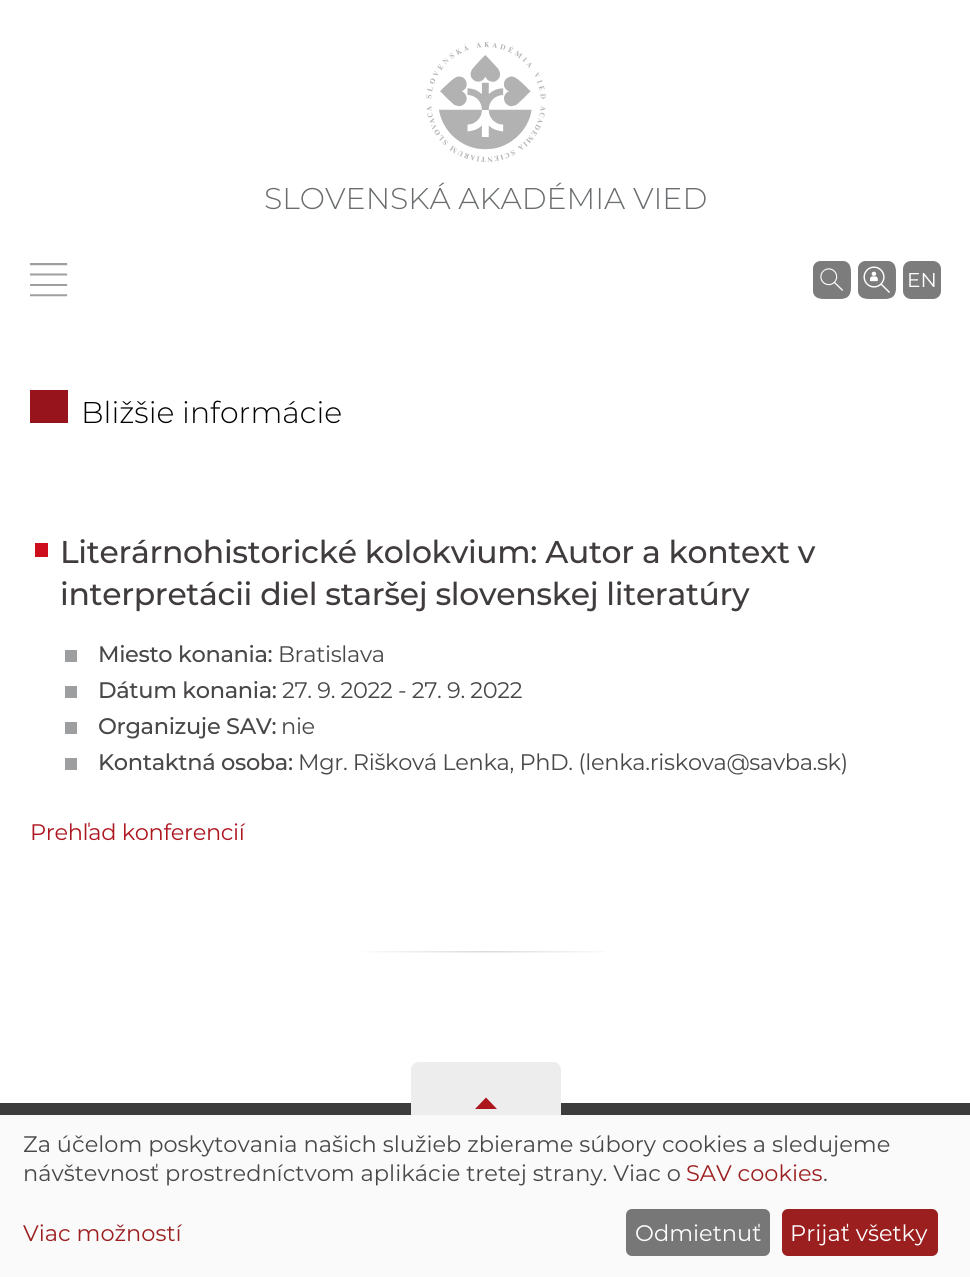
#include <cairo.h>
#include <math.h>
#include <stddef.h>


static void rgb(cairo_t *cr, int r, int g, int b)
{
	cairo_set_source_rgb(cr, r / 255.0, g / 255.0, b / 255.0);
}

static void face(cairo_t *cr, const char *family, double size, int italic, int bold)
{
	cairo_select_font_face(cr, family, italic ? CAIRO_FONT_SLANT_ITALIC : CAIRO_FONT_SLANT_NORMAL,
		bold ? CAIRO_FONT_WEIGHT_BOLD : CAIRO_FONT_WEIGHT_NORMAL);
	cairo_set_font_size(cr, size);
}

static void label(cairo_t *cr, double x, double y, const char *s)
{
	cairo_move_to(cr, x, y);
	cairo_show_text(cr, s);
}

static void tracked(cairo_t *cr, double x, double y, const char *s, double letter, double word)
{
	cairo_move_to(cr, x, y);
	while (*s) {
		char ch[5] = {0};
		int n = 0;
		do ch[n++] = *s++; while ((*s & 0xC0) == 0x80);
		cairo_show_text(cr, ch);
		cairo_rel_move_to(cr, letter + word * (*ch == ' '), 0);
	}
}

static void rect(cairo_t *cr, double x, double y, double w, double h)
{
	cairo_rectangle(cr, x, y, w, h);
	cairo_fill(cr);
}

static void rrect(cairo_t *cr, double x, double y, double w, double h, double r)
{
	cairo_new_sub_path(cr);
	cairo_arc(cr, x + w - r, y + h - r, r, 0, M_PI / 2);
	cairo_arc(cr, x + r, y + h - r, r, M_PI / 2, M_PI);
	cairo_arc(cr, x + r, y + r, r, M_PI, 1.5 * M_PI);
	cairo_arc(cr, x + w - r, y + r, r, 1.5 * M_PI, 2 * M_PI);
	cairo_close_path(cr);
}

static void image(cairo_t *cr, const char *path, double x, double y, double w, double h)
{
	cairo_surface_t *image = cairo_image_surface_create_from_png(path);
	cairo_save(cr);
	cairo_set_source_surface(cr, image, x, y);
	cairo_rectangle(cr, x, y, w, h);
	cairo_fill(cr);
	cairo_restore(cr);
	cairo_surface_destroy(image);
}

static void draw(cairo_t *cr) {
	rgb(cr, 255, 255, 255);
	cairo_paint(cr);
	image(cr, "image0.png", 426, 42, 120, 120);
	face(cr, "Montserrat Light", 30, 0, 0);
	rgb(cr, 106, 109, 111);
	label(cr, 264, 209, "SLOVENSKÁ AKADÉMIA VIED");
	image(cr, "image1.png", 30, 263, 38, 34);
	rgb(cr, 128, 128, 128);
	rrect(cr, 813, 261, 38, 38, 11);
	cairo_fill(cr);
	image(cr, "image2.png", 813, 261, 38, 38);
	rrect(cr, 858, 261, 38, 38, 11);
	cairo_fill(cr);
	image(cr, "image3.png", 858, 261, 38, 38);
	rgb(cr, 124, 124, 124);
	rrect(cr, 903, 261, 38, 38, 8);
	cairo_fill(cr);
	face(cr, "Montserrat", 20, 0, 0);
	rgb(cr, 255, 255, 255);
	label(cr, 907, 287, "EN");
	rgb(cr, 151, 20, 28);
	rect(cr, 30, 390, 38, 33);
	face(cr, "Montserrat Light", 30, 0, 0);
	rgb(cr, 0, 0, 0);
	label(cr, 81, 423, "Bližšie informácie");
	rgb(cr, 206, 14, 28);
	rect(cr, 35, 543, 13, 14);
	face(cr, "Montserrat Medium", 31.5, 0, 0);
	rgb(cr, 64, 60, 61);
	tracked(cr, 60, 563, "Literárnohistorické kolokvium: Autor a kontext v", -0.35, 0);
	tracked(cr, 60, 605, "interpretácii diel staršej slovenskej literatúry", -0.35, 0);
	rgb(cr, 156, 158, 159);
	rect(cr, 65, 650, 12, 12);
	face(cr, "Montserrat Medium", 22.5, 0, 0);
	rgb(cr, 73, 71, 72);
	tracked(cr, 98, 662, "Miesto konania:", -0.35, 0);
	face(cr, "Montserrat", 22.5, 0, 0);
	tracked(cr, 278, 662, "Bratislava", -0.35, 0);
	rgb(cr, 156, 158, 159);
	rect(cr, 65, 686, 12, 12);
	face(cr, "Montserrat Medium", 22.5, 0, 0);
	rgb(cr, 73, 71, 72);
	tracked(cr, 98, 698, "Dátum konania:", -0.35, 0);
	face(cr, "Montserrat", 22.5, 0, 0);
	tracked(cr, 282, 698, "27. 9. 2022 - 27. 9. 2022", -0.35, 0);
	rgb(cr, 156, 158, 159);
	rect(cr, 65, 722, 12, 12);
	face(cr, "Montserrat Medium", 22.5, 0, 0);
	rgb(cr, 73, 71, 72);
	tracked(cr, 98, 734, "Organizuje SAV:", -0.35, 0);
	face(cr, "Montserrat", 22.5, 0, 0);
	tracked(cr, 281, 734, "nie", -0.35, 0);
	rgb(cr, 156, 158, 159);
	rect(cr, 65, 758, 12, 12);
	face(cr, "Montserrat Medium", 22.5, 0, 0);
	rgb(cr, 73, 71, 72);
	tracked(cr, 98, 770, "Kontaktná osoba:", -0.35, 0);
	face(cr, "Montserrat", 22.5, 0, 0);
	tracked(cr, 298, 770, "Mgr. Rišková Lenka, PhD. (lenka.riskova@savba.sk)", -0.35, 0);
	rgb(cr, 173, 22, 31);
	tracked(cr, 30, 840, "Prehľad konferencií", -0.35, 0);
	image(cr, "image4.png", 363, 951, 242, 2);
	rgb(cr, 61, 61, 61);
	rect(cr, 0, 1103, 970, 12);
	rgb(cr, 237, 237, 237);
	cairo_new_path(cr);
	cairo_move_to(cr, 419, 1062);
	cairo_line_to(cr, 553, 1062);
	cairo_curve_to(cr, 557.5, 1062, 561, 1065.5, 561, 1070);
	cairo_line_to(cr, 561, 1145);
	cairo_line_to(cr, 411, 1145);
	cairo_line_to(cr, 411, 1070);
	cairo_curve_to(cr, 411, 1065.5, 414.5, 1062, 419, 1062);
	cairo_close_path(cr);
	cairo_fill(cr);
	rgb(cr, 172, 23, 30);
	cairo_new_path(cr);
	cairo_move_to(cr, 486, 1097.5);
	cairo_line_to(cr, 475, 1109);
	cairo_line_to(cr, 497, 1109);
	cairo_close_path(cr);
	cairo_fill(cr);
	rgb(cr, 250, 250, 250);
	rect(cr, 0, 1115, 970, 162);
	rgb(cr, 73, 71, 72);
	label(cr, 23, 1152, "Za účelom poskytovania našich služieb zbierame súbory cookies a sledujeme");
	label(cr, 23, 1181, "návštevnosť prostredníctvom aplikácie tretej strany. Viac o");
	rgb(cr, 156, 31, 32);
	label(cr, 686, 1181, "SAV cookies");
	rgb(cr, 73, 71, 72);
	label(cr, 823, 1181, ".");
	rgb(cr, 156, 31, 32);
	label(cr, 23, 1241, "Viac možností");
	rgb(cr, 119, 119, 119);
	rrect(cr, 626, 1209, 144, 47, 6);
	cairo_fill(cr);
	rgb(cr, 255, 255, 255);
	label(cr, 635, 1241, "Odmietnuť");
	rgb(cr, 156, 31, 32);
	rrect(cr, 782, 1209, 156, 47, 6);
	cairo_fill(cr);
	rgb(cr, 255, 255, 255);
	label(cr, 790, 1241, "Prijať všetky");
}

int main(void) {
	cairo_surface_t *surface = cairo_image_surface_create(CAIRO_FORMAT_RGB24, 970, 1277);
	cairo_t *cr = cairo_create(surface);
	cairo_font_options_t *options = cairo_font_options_create();
	cairo_font_options_set_hint_metrics(options, CAIRO_HINT_METRICS_OFF);
	cairo_font_options_set_hint_style(options, CAIRO_HINT_STYLE_NONE);
	cairo_set_font_options(cr, options);
	cairo_set_miter_limit(cr, 4);
	draw(cr);
	cairo_surface_write_to_png(surface, "render.png");
	cairo_font_options_destroy(options);
	cairo_destroy(cr);
	cairo_surface_destroy(surface);
	return 0;
}
